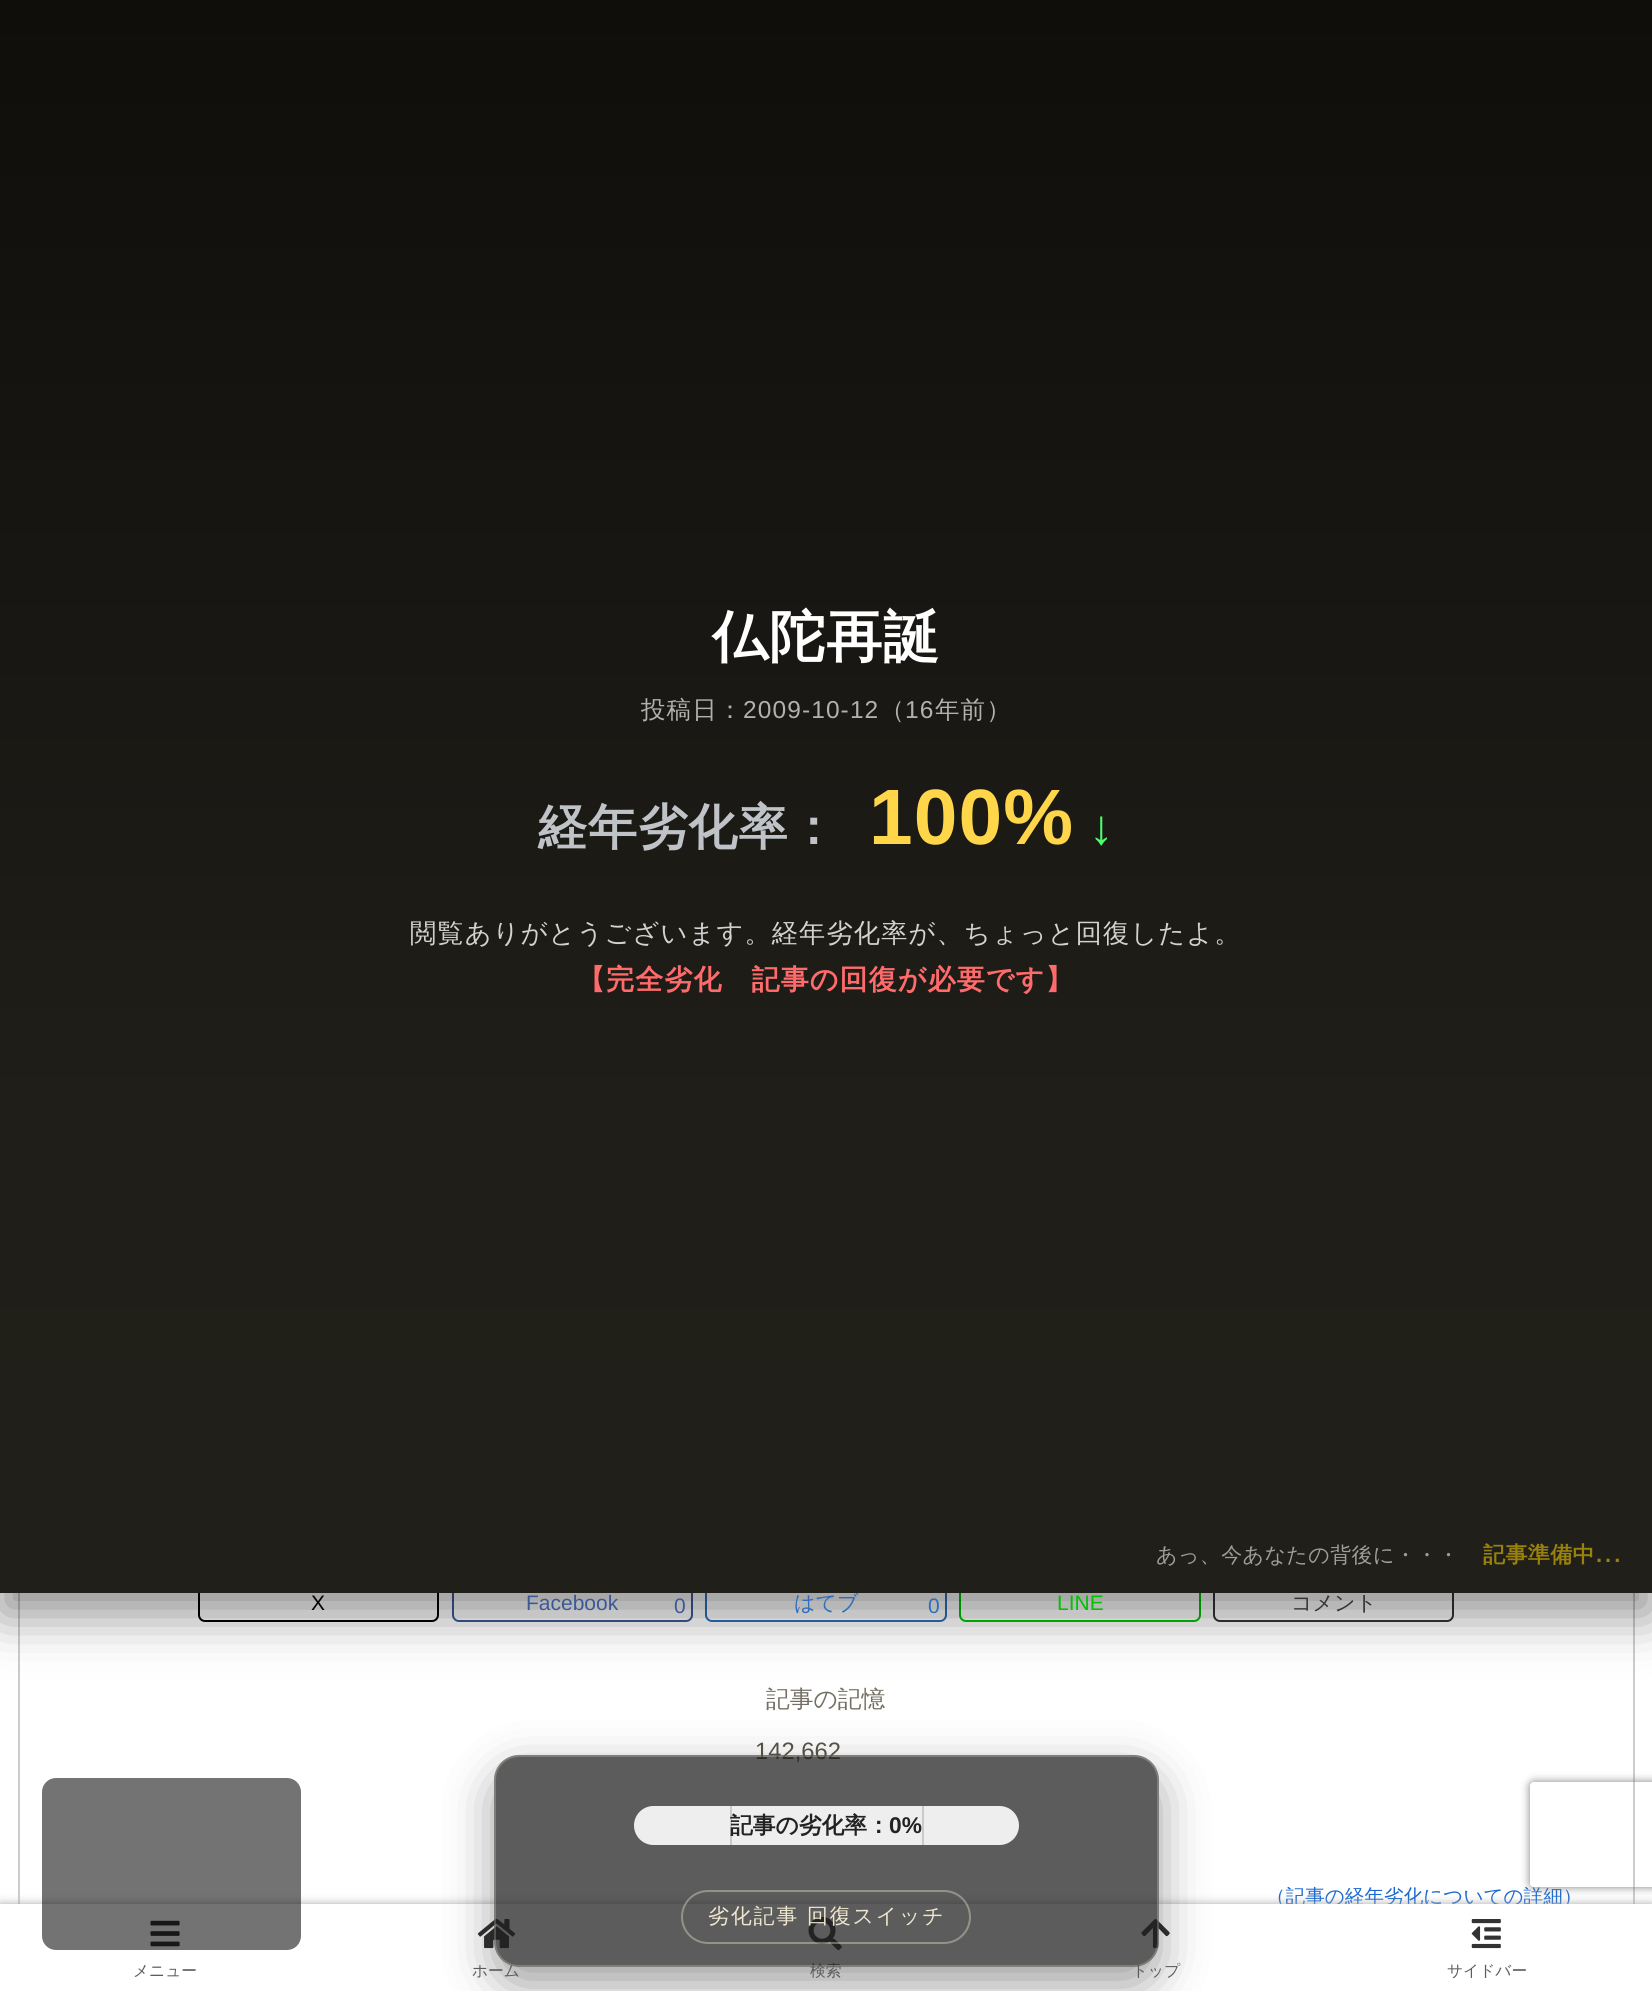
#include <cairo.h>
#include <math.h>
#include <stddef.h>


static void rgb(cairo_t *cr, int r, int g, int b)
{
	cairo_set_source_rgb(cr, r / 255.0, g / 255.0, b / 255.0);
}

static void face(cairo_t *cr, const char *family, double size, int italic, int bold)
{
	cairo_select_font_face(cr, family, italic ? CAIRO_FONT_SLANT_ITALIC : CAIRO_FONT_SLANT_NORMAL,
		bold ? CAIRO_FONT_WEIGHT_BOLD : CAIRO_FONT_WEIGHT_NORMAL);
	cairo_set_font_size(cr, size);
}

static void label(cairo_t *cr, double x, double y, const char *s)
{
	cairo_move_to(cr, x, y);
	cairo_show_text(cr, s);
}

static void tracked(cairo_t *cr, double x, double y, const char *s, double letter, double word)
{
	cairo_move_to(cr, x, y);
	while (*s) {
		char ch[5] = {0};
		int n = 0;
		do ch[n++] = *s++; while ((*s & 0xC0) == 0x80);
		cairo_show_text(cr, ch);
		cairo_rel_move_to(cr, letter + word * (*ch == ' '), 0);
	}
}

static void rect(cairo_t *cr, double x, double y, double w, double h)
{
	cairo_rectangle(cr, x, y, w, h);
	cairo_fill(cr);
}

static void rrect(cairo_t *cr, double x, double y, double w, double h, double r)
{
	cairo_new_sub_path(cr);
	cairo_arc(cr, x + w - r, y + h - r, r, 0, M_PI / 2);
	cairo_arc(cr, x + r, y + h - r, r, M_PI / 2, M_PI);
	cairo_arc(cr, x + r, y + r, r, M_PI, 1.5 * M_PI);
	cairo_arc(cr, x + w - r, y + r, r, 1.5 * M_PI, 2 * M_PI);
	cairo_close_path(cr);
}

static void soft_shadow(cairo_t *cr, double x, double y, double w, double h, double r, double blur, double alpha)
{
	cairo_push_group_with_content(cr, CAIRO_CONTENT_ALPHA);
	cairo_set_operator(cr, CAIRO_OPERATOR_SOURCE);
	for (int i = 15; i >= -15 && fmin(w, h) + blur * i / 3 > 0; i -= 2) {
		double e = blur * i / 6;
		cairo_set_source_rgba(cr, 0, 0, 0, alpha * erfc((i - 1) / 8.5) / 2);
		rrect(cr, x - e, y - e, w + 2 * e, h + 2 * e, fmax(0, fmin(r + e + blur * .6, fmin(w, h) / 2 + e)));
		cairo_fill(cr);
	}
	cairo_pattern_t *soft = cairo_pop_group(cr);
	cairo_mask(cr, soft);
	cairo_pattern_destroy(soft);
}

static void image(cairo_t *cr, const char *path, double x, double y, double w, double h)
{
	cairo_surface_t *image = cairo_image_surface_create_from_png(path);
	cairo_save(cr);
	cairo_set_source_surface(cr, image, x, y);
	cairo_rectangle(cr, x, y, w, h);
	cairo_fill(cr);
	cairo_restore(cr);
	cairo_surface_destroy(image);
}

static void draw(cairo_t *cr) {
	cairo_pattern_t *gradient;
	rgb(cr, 255, 255, 255);
	cairo_paint(cr);
	cairo_rectangle(cr, 19, -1, 1615, 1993);
	rgb(cr, 204, 204, 204);
	cairo_stroke(cr);
	rrect(cr, 199, 1545, 239, 76, 6);
	rgb(cr, 0, 0, 0);
	cairo_stroke(cr);
	rrect(cr, 453, 1545, 239, 76, 6);
	rgb(cr, 59, 89, 152);
	cairo_stroke(cr);
	rrect(cr, 706, 1545, 240, 76, 6);
	rgb(cr, 44, 110, 189);
	cairo_stroke(cr);
	rrect(cr, 960, 1545, 240, 76, 6);
	rgb(cr, 0, 195, 0);
	cairo_stroke(cr);
	rrect(cr, 1214, 1545, 239, 76, 6);
	rgb(cr, 51, 51, 51);
	cairo_stroke(cr);
	rgb(cr, 0, 0, 0);
	soft_shadow(cr, 0, 21, 1652, 1593, 0, 26, 0.45);
	face(cr, "WenQuanYi Zen Hei Medium", 21, 0, 0);
	rgb(cr, 44, 110, 189);
	label(cr, 794, 1610, "はてブ");
	gradient = cairo_pattern_create_linear(826, 0, 826, 1593);
	cairo_pattern_add_color_stop_rgba(gradient, 0, 0.059, 0.055, 0.043, 1);
	cairo_pattern_add_color_stop_rgba(gradient, 0.4, 0.098, 0.09, 0.075, 1);
	cairo_pattern_add_color_stop_rgba(gradient, 0.7, 0.122, 0.118, 0.094, 1);
	cairo_pattern_add_color_stop_rgba(gradient, 1, 0.129, 0.122, 0.098, 1);
	cairo_set_source(cr, gradient);
	cairo_pattern_destroy(gradient);
	rect(cr, 0, 0, 1652, 1593);
	face(cr, "WenQuanYi Zen Hei", 56, 0, 1);
	rgb(cr, 255, 255, 255);
	tracked(cr, 712, 656, "仏陀再誕", 1.1, 0);
	face(cr, "WenQuanYi Zen Hei Medium", 24.5, 0, 0);
	rgb(cr, 177, 177, 175);
	tracked(cr, 641, 718, "投稿日：", 1.1, 0);
	face(cr, "Liberation Sans", 24.5, 0, 0);
	tracked(cr, 743, 718, "2009-10-12", 1.1, 0);
	face(cr, "WenQuanYi Zen Hei Medium", 24.5, 0, 0);
	tracked(cr, 880, 718, "（", 1.1, 0);
	face(cr, "Liberation Sans", 24.5, 0, 0);
	tracked(cr, 905, 718, "16", 1.1, 0);
	face(cr, "WenQuanYi Zen Hei Medium", 24.5, 0, 0);
	tracked(cr, 935, 718, "年前）", 1.1, 0);
	face(cr, "WenQuanYi Zen Hei", 49, 0, 1);
	rgb(cr, 191, 195, 200);
	tracked(cr, 538, 844, "経年劣化率：", 1.1, 0);
	face(cr, "Liberation Sans", 78.5, 0, 1);
	rgb(cr, 255, 213, 74);
	tracked(cr, 869, 844, "100%", 1.1, 0);
	face(cr, "Liberation Sans", 49, 0, 1);
	rgb(cr, 76, 255, 106);
	tracked(cr, 1089, 844, "↓", 1.1, 0);
	face(cr, "WenQuanYi Zen Hei Medium", 26.25, 0, 0);
	rgb(cr, 210, 210, 209);
	tracked(cr, 410, 942, "閲覧ありがとうございます。経年劣化率が、ちょっと回復したよ。", 1.1, 0);
	face(cr, "WenQuanYi Zen Hei", 28, 0, 1);
	rgb(cr, 255, 107, 107);
	tracked(cr, 577, 989, "【完全劣化　記事の回復が必要です】", 1.1, 0);
	face(cr, "WenQuanYi Zen Hei Medium", 21, 0, 0);
	rgb(cr, 158, 158, 155);
	tracked(cr, 1156, 1562, "あっ、今あなたの背後に・・・", 0.4, 0);
	face(cr, "WenQuanYi Zen Hei", 22, 0, 1);
	rgb(cr, 153, 130, 12);
	tracked(cr, 1483, 1562, "記事準備中", 0.4, 0);
	face(cr, "Liberation Sans", 22, 0, 1);
	tracked(cr, 1596, 1562, "...", 3, 0);
	face(cr, "Liberation Sans", 21, 0, 0);
	rgb(cr, 0, 0, 0);
	label(cr, 311, 1610, "X");
	rgb(cr, 59, 89, 152);
	label(cr, 526, 1610, "Facebook");
	label(cr, 674, 1613, "0");
	rgb(cr, 44, 110, 189);
	label(cr, 928, 1613, "0");
	rgb(cr, 0, 195, 0);
	label(cr, 1057, 1610, "LINE");
	face(cr, "WenQuanYi Zen Hei Medium", 21, 0, 0);
	rgb(cr, 51, 51, 51);
	label(cr, 1291, 1610, "コメント");
	face(cr, "WenQuanYi Zen Hei Medium", 23.75, 0, 0);
	rgb(cr, 115, 111, 99);
	label(cr, 766, 1707, "記事の記憶");
	face(cr, "Liberation Sans", 23.75, 0, 0);
	rgb(cr, 90, 85, 72);
	label(cr, 755, 1759, "142,662");
	face(cr, "WenQuanYi Zen Hei Medium", 19.6, 0, 0);
	rgb(cr, 25, 103, 210);
	label(cr, 1266, 1903, "（記事の経年劣化についての詳細）");
	rgb(cr, 169, 169, 169);
	soft_shadow(cr, 0, 1904, 1652, 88, 0, 4.5, 1);
	rgb(cr, 255, 255, 255);
	rect(cr, 0, 1904, 1652, 87);
	image(cr, "image1.png", 477, 1919, 39, 30);
	image(cr, "image2.png", 808, 1916, 34, 35);
	image(cr, "image3.png", 1141, 1919, 29, 30);
	cairo_save(cr);
	cairo_set_fill_rule(cr, CAIRO_FILL_RULE_EVEN_ODD);
	cairo_new_path(cr);
	cairo_move_to(cr, 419, 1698);
	cairo_line_to(cr, 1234, 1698);
	cairo_line_to(cr, 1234, 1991);
	cairo_line_to(cr, 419, 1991);
	cairo_close_path(cr);
	cairo_move_to(cr, 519, 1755);
	cairo_line_to(cr, 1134, 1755);
	cairo_curve_to(cr, 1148, 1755, 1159, 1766, 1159, 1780);
	cairo_line_to(cr, 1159, 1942);
	cairo_curve_to(cr, 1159, 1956, 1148, 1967, 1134, 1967);
	cairo_line_to(cr, 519, 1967);
	cairo_curve_to(cr, 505, 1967, 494, 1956, 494, 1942);
	cairo_line_to(cr, 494, 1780);
	cairo_curve_to(cr, 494, 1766, 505, 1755, 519, 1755);
	cairo_close_path(cr);
	cairo_clip(cr);
	rgb(cr, 0, 0, 0);
	soft_shadow(cr, 494, 1773, 665, 212, 25, 24.5, 0.38);
	cairo_restore(cr);
	face(cr, "WenQuanYi Zen Hei Medium", 15.75, 0, 0);
	rgb(cr, 92, 92, 92);
	label(cr, 472, 1976, "ホーム");
	label(cr, 810, 1976, "検索");
	label(cr, 1132, 1976, "トップ");
	cairo_set_source_rgba(cr, 0.118, 0.118, 0.118, 0.72);
	rrect(cr, 494, 1755, 665, 212, 25);
	cairo_fill(cr);
	rrect(cr, 495, 1756, 663, 210, 24);
	cairo_set_source_rgba(cr, 1, 0.961, 0.863, 0.22);
	cairo_stroke(cr);
	rgb(cr, 238, 238, 238);
	rrect(cr, 634, 1806, 385, 39, 19.5);
	cairo_fill(cr);
	rgb(cr, 202, 202, 202);
	rect(cr, 730, 1806, 2, 39);
	rect(cr, 922, 1806, 2, 39);
	face(cr, "WenQuanYi Zen Hei", 22.75, 0, 1);
	rgb(cr, 34, 34, 34);
	label(cr, 730, 1833, "記事の劣化率：");
	face(cr, "Liberation Sans", 22.75, 0, 1);
	label(cr, 889, 1833, "0%");
	rrect(cr, 682, 1891, 288, 52, 26);
	cairo_set_source_rgba(cr, 1, 0.961, 0.863, 0.35);
	cairo_stroke(cr);
	face(cr, "WenQuanYi Zen Hei Medium", 21, 0, 0);
	rgb(cr, 239, 230, 207);
	tracked(cr, 708, 1923, "劣化記事 回復スイッチ", 1.75, 0);
	image(cr, "image0.png", 150, 1920, 30, 27);
	face(cr, "WenQuanYi Zen Hei Medium", 15.75, 0, 0);
	rgb(cr, 92, 92, 92);
	label(cr, 133, 1976, "メニュー");
	image(cr, "image4.png", 1471, 1919, 30, 30);
	label(cr, 1447, 1976, "サイドバー");
	cairo_save(cr);
	cairo_set_fill_rule(cr, CAIRO_FILL_RULE_EVEN_ODD);
	cairo_new_path(cr);
	cairo_move_to(cr, 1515, 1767);
	cairo_line_to(cr, 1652, 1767);
	cairo_line_to(cr, 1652, 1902);
	cairo_line_to(cr, 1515, 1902);
	cairo_close_path(cr);
	cairo_move_to(cr, 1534, 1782);
	cairo_line_to(cr, 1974, 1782);
	cairo_curve_to(cr, 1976, 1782, 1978, 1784, 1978, 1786);
	cairo_line_to(cr, 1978, 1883);
	cairo_curve_to(cr, 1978, 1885, 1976, 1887, 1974, 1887);
	cairo_line_to(cr, 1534, 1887);
	cairo_curve_to(cr, 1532, 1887, 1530, 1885, 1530, 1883);
	cairo_line_to(cr, 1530, 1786);
	cairo_curve_to(cr, 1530, 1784, 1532, 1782, 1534, 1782);
	cairo_close_path(cr);
	cairo_clip(cr);
	rgb(cr, 128, 128, 128);
	soft_shadow(cr, 1530, 1782, 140, 105, 4, 4.5, 1);
	cairo_restore(cr);
	cairo_set_source_rgba(cr, 0, 0, 0, 0.55);
	rrect(cr, 42, 1778, 259, 172, 14);
	cairo_fill(cr);
}

int main(void) {
	cairo_surface_t *surface = cairo_image_surface_create(CAIRO_FORMAT_RGB24, 1652, 1991);
	cairo_t *cr = cairo_create(surface);
	cairo_font_options_t *options = cairo_font_options_create();
	cairo_font_options_set_hint_metrics(options, CAIRO_HINT_METRICS_OFF);
	cairo_font_options_set_hint_style(options, CAIRO_HINT_STYLE_NONE);
	cairo_set_font_options(cr, options);
	cairo_set_miter_limit(cr, 4);
	draw(cr);
	cairo_surface_write_to_png(surface, "render.png");
	cairo_font_options_destroy(options);
	cairo_destroy(cr);
	cairo_surface_destroy(surface);
	return 0;
}
